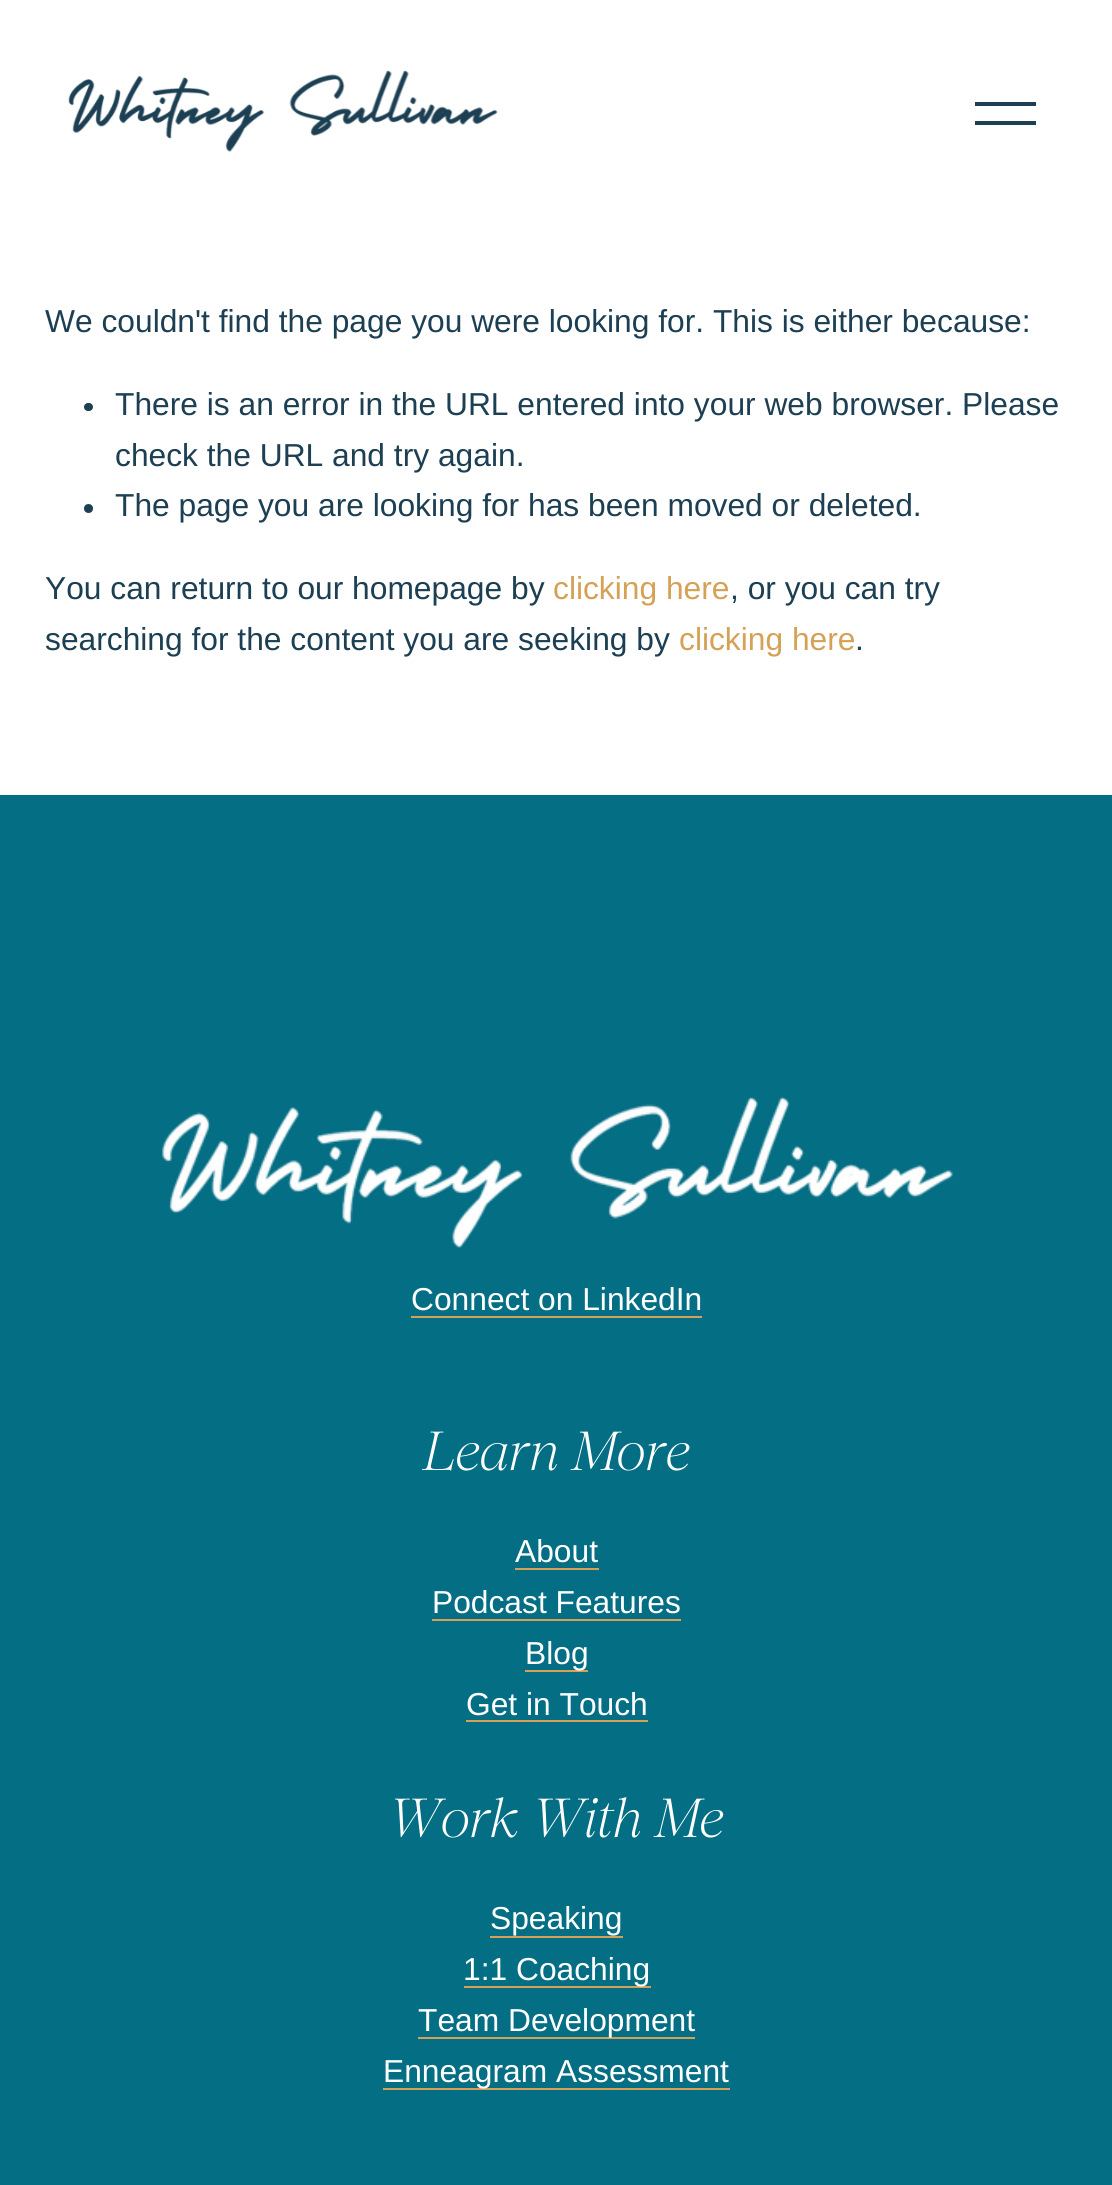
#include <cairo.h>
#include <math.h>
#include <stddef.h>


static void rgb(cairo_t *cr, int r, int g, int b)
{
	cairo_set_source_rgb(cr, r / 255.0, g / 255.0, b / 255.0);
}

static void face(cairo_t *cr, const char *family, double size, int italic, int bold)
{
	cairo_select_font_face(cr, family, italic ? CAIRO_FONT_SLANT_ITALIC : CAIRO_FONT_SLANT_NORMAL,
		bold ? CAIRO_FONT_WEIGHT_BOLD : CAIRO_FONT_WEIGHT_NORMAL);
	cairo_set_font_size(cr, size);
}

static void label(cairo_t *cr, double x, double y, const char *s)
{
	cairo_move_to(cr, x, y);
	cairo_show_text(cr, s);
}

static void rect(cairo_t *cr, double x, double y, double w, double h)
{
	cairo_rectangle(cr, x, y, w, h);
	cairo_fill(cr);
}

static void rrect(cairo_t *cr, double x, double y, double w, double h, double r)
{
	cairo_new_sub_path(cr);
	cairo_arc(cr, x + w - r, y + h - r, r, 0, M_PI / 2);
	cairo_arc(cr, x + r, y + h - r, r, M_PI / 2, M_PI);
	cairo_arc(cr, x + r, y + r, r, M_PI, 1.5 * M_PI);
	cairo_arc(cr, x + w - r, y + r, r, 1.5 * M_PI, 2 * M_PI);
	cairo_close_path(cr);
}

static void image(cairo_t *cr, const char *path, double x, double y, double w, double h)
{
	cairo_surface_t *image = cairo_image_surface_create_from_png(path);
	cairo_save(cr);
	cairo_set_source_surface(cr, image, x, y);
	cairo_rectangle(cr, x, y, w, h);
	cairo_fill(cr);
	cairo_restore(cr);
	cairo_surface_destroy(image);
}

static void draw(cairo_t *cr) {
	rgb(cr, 255, 255, 255);
	cairo_paint(cr);
	image(cr, "image0.png", 68, 70, 430, 82);
	rgb(cr, 28, 63, 83);
	rect(cr, 975, 102, 61, 4);
	rect(cr, 975, 121, 61, 4);
	face(cr, "Liberation Sans", 31.75, 0, 0);
	label(cr, 45, 332, "We couldn't find the page you were looking for. This is either because:");
	rrect(cr, 84, 403, 9, 8, 4);
	cairo_fill(cr);
	label(cr, 115, 415, "There is an error in the URL entered into your web browser. Please");
	label(cr, 115, 466, "check the URL and try again.");
	cairo_new_path(cr);
	cairo_arc(cr, 88.5, 508.5, 4.5, 0, 2 * M_PI);
	cairo_fill(cr);
	label(cr, 115, 516, "The page you are looking for has been moved or deleted.");
	label(cr, 45, 599, "You can return to our homepage by");
	rgb(cr, 213, 161, 86);
	label(cr, 553, 599, "clicking here");
	rgb(cr, 28, 63, 83);
	label(cr, 730, 599, ", or you can try");
	label(cr, 45, 650, "searching for the content you are seeking by");
	rgb(cr, 213, 161, 86);
	label(cr, 679, 650, "clicking here");
	rgb(cr, 28, 63, 83);
	label(cr, 855, 650, ".");
	rgb(cr, 3, 110, 132);
	rect(cr, 0, 795, 1112, 1390);
	image(cr, "image1.png", 162, 1096, 791, 152);
	rgb(cr, 255, 255, 255);
	label(cr, 411, 1310, "Connect on LinkedIn");
	rgb(cr, 213, 161, 86);
	rect(cr, 411, 1316, 291, 2);
	face(cr, "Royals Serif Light", 56.5, 1, 0);
	rgb(cr, 255, 255, 255);
	label(cr, 423, 1470, "Learn More");
	face(cr, "Liberation Sans", 31.75, 0, 0);
	label(cr, 515, 1562, "About");
	rgb(cr, 213, 161, 86);
	rect(cr, 515, 1568, 84, 2);
	rgb(cr, 255, 255, 255);
	label(cr, 432, 1613, "Podcast Features");
	rgb(cr, 213, 161, 86);
	rect(cr, 432, 1619, 249, 2);
	rect(cr, 525, 1670, 63, 2);
	rgb(cr, 255, 255, 255);
	label(cr, 525, 1664, "Blog");
	label(cr, 466, 1715, "Get in Touch");
	rgb(cr, 213, 161, 86);
	rect(cr, 466, 1720, 182, 2);
	face(cr, "Royals Serif Light", 56.5, 1, 0);
	rgb(cr, 255, 255, 255);
	label(cr, 389, 1837, "Work With Me");
	face(cr, "Liberation Sans", 31.75, 0, 0);
	label(cr, 490, 1929, "Speaking");
	rgb(cr, 213, 161, 86);
	rect(cr, 490, 1936, 133, 2);
	rect(cr, 464, 1986, 187, 2);
	rgb(cr, 255, 255, 255);
	label(cr, 463, 1980, "1:1 Coaching");
	rgb(cr, 213, 161, 86);
	rect(cr, 418, 2037, 277, 2);
	rgb(cr, 255, 255, 255);
	label(cr, 418, 2031, "Team Development");
	rgb(cr, 213, 161, 86);
	rect(cr, 383, 2088, 347, 2);
	rgb(cr, 255, 255, 255);
	label(cr, 383, 2082, "Enneagram Assessment");
}

int main(void) {
	cairo_surface_t *surface = cairo_image_surface_create(CAIRO_FORMAT_RGB24, 1112, 2185);
	cairo_t *cr = cairo_create(surface);
	cairo_font_options_t *options = cairo_font_options_create();
	cairo_font_options_set_hint_metrics(options, CAIRO_HINT_METRICS_OFF);
	cairo_font_options_set_hint_style(options, CAIRO_HINT_STYLE_NONE);
	cairo_set_font_options(cr, options);
	cairo_set_miter_limit(cr, 4);
	draw(cr);
	cairo_surface_write_to_png(surface, "render.png");
	cairo_font_options_destroy(options);
	cairo_destroy(cr);
	cairo_surface_destroy(surface);
	return 0;
}
